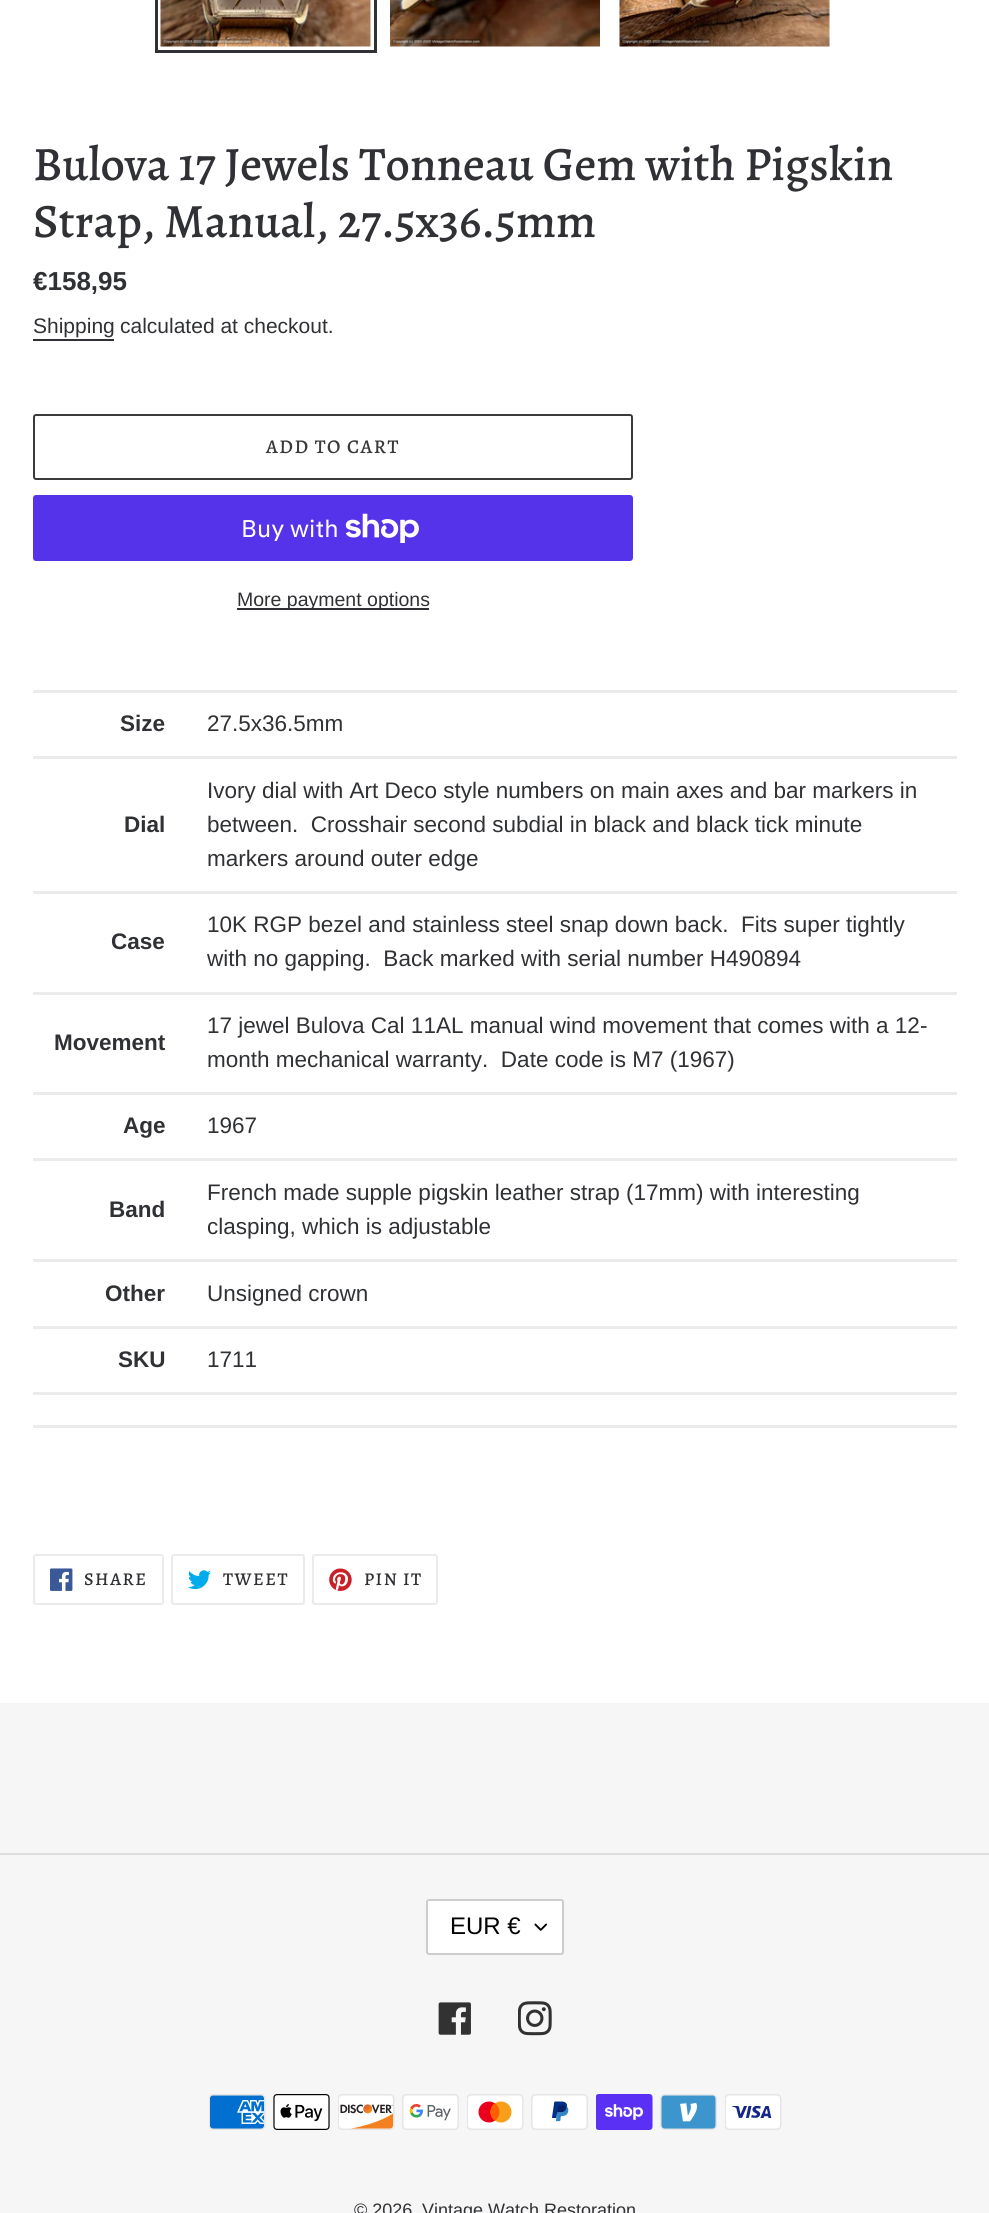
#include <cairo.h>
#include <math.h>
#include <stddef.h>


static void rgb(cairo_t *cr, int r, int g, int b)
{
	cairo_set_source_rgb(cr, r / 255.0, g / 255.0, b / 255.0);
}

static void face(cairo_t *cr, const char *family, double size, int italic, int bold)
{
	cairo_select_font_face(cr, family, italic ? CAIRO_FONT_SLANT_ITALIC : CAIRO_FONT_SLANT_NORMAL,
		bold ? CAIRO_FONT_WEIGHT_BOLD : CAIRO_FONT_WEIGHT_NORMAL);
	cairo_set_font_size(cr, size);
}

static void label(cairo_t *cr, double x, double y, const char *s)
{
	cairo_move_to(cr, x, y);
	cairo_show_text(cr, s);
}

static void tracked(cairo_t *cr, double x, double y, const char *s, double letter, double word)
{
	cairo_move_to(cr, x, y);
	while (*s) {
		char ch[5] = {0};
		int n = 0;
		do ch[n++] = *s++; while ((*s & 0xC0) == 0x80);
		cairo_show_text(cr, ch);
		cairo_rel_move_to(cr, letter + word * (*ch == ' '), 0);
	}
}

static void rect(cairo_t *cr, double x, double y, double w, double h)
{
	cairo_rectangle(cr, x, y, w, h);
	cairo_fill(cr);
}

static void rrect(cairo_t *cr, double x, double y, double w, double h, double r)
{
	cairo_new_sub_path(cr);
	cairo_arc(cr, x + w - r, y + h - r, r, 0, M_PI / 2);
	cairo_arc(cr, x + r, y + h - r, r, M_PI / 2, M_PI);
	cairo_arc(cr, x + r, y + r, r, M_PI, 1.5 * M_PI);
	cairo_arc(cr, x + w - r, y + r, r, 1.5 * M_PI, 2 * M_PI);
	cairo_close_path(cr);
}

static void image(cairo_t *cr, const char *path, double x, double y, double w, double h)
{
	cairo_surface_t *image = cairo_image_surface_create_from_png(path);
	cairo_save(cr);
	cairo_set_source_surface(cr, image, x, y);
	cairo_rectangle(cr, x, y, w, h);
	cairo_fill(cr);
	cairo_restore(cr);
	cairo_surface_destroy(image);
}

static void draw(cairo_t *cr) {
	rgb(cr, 255, 255, 255);
	cairo_paint(cr);
	cairo_rectangle(cr, 156.5, -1.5, 219, 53);
	rgb(cr, 47, 49, 52);
	cairo_set_line_width(cr, 3);
	cairo_stroke(cr);
	image(cr, "image0.png", 160, 0, 211, 47);
	image(cr, "image1.png", 390, 0, 210, 47);
	image(cr, "image2.png", 619, 0, 211, 47);
	face(cr, "Alegreya Medium", 48, 0, 0);
	label(cr, 33, 180, "Bulova 17 Jewels Tonneau Gem with Pigskin");
	label(cr, 33, 237, "Strap, Manual, 27.5x36.5mm");
	face(cr, "Liberation Sans", 26, 0, 1);
	label(cr, 33, 290, "€158,95");
	face(cr, "Liberation Sans", 21, 0, 0);
	label(cr, 33, 333, "Shipping");
	rect(cr, 33, 339, 81, 2);
	label(cr, 120, 333, "calculated at checkout.");
	rrect(cr, 34, 415, 598, 64, 2);
	rgb(cr, 58, 58, 58);
	cairo_set_line_width(cr, 2);
	cairo_stroke(cr);
	face(cr, "Alegreya Medium", 19.5, 0, 0);
	tracked(cr, 266, 453, "ADD TO CART", 1.5, 0);
	rgb(cr, 84, 51, 235);
	rrect(cr, 33, 495, 600, 66, 3);
	cairo_fill(cr);
	face(cr, "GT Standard", 24, 0, 0);
	rgb(cr, 255, 255, 255);
	label(cr, 241, 537, "Buy with");
	image(cr, "image3.png", 345, 513, 74, 30);
	rgb(cr, 47, 49, 52);
	rect(cr, 237, 608, 192, 2);
	face(cr, "Liberation Sans", 19.5, 0, 0);
	label(cr, 237, 606, "More payment options");
	face(cr, "Liberation Sans", 22.5, 0, 1);
	label(cr, 120, 731, "Size");
	rgb(cr, 235, 235, 235);
	rect(cr, 33, 690, 924, 3);
	face(cr, "Liberation Sans", 22.5, 0, 0);
	rgb(cr, 47, 49, 52);
	label(cr, 207, 731, "27.5x36.5mm");
	face(cr, "Liberation Sans", 22.5, 0, 1);
	label(cr, 124, 832, "Dial");
	rgb(cr, 235, 235, 235);
	rect(cr, 33, 756, 924, 3);
	face(cr, "Liberation Sans", 22.5, 0, 0);
	rgb(cr, 47, 49, 52);
	label(cr, 207, 798, "Ivory dial with Art Deco style numbers on main axes and bar markers in");
	label(cr, 207, 832, "between.  Crosshair second subdial in black and black tick minute");
	label(cr, 207, 866, "markers around outer edge");
	face(cr, "Liberation Sans", 22.5, 0, 1);
	label(cr, 111, 949, "Case");
	rgb(cr, 235, 235, 235);
	rect(cr, 33, 891, 924, 3);
	face(cr, "Liberation Sans", 22.5, 0, 0);
	rgb(cr, 47, 49, 52);
	label(cr, 207, 932, "10K RGP bezel and stainless steel snap down back.  Fits super tightly");
	label(cr, 207, 966, "with no gapping.  Back marked with serial number H490894");
	face(cr, "Liberation Sans", 22.5, 0, 1);
	label(cr, 54, 1050, "Movement");
	rgb(cr, 235, 235, 235);
	rect(cr, 33, 992, 924, 3);
	face(cr, "Liberation Sans", 22.5, 0, 0);
	rgb(cr, 47, 49, 52);
	label(cr, 207, 1033, "17 jewel Bulova Cal 11AL manual wind movement that comes with a 12-");
	label(cr, 207, 1067, "month mechanical warranty.  Date code is M7 (1967)");
	face(cr, "Liberation Sans", 22.5, 0, 1);
	label(cr, 123, 1133, "Age");
	rgb(cr, 235, 235, 235);
	rect(cr, 33, 1092, 924, 3);
	face(cr, "Liberation Sans", 22.5, 0, 0);
	rgb(cr, 47, 49, 52);
	label(cr, 207, 1133, "1967");
	face(cr, "Liberation Sans", 22.5, 0, 1);
	label(cr, 109, 1217, "Band");
	rgb(cr, 235, 235, 235);
	rect(cr, 33, 1158, 924, 3);
	face(cr, "Liberation Sans", 22.5, 0, 0);
	rgb(cr, 47, 49, 52);
	label(cr, 207, 1200, "French made supple pigskin leather strap (17mm) with interesting");
	label(cr, 207, 1234, "clasping, which is adjustable");
	face(cr, "Liberation Sans", 22.5, 0, 1);
	label(cr, 105, 1301, "Other");
	rgb(cr, 235, 235, 235);
	rect(cr, 33, 1259, 924, 3);
	face(cr, "Liberation Sans", 22.5, 0, 0);
	rgb(cr, 47, 49, 52);
	label(cr, 207, 1301, "Unsigned crown");
	face(cr, "Liberation Sans", 22.5, 0, 1);
	label(cr, 118, 1367, "SKU");
	rgb(cr, 235, 235, 235);
	rect(cr, 33, 1326, 924, 3);
	face(cr, "Liberation Sans", 22.5, 0, 0);
	rgb(cr, 47, 49, 52);
	label(cr, 207, 1367, "1711");
	rgb(cr, 235, 235, 235);
	rect(cr, 33, 1392, 924, 3);
	rect(cr, 33, 1425, 924, 3);
	rrect(cr, 34, 1555, 129, 49, 2);
	cairo_stroke(cr);
	image(cr, "image4.png", 50, 1568, 23, 23);
	face(cr, "Alegreya Medium", 18, 0, 0);
	rgb(cr, 47, 49, 52);
	tracked(cr, 84, 1585, "SHARE", 1.5, 0);
	rrect(cr, 172, 1555, 132, 49, 2);
	rgb(cr, 235, 235, 235);
	cairo_stroke(cr);
	image(cr, "image5.png", 188, 1570, 23, 20);
	rgb(cr, 47, 49, 52);
	tracked(cr, 223, 1585, "TWEET", 1.5, 0);
	rrect(cr, 313, 1555, 124, 49, 2);
	rgb(cr, 235, 235, 235);
	cairo_stroke(cr);
	image(cr, "image6.png", 329, 1568, 23, 23);
	rgb(cr, 47, 49, 52);
	tracked(cr, 364, 1585, "PIN IT", 1.5, 0);
	rgb(cr, 246, 246, 246);
	rect(cr, 0, 1703, 989, 510);
	rgb(cr, 221, 221, 221);
	rect(cr, 0, 1853, 989, 2);
	rgb(cr, 255, 255, 255);
	rrect(cr, 426, 1899, 138, 56, 3);
	cairo_fill(cr);
	image(cr, "image7.png", 534, 1923, 14, 8);
	rrect(cr, 427, 1900, 136, 54, 2);
	rgb(cr, 204, 204, 204);
	cairo_stroke(cr);
	face(cr, "Liberation Sans", 24, 0, 0);
	rgb(cr, 0, 0, 0);
	label(cr, 450, 1934, "EUR €");
	image(cr, "image8.png", 438, 2002, 33, 33);
	image(cr, "image9.png", 518, 2001, 34, 35);
	image(cr, "image10.png", 209, 2094, 57, 36);
	image(cr, "image11.png", 273, 2094, 57, 36);
	image(cr, "image12.png", 338, 2094, 57, 36);
	image(cr, "image13.png", 402, 2094, 57, 36);
	image(cr, "image14.png", 467, 2094, 57, 36);
	image(cr, "image15.png", 531, 2094, 57, 36);
	image(cr, "image16.png", 596, 2094, 57, 36);
	image(cr, "image17.png", 660, 2094, 57, 36);
	image(cr, "image18.png", 725, 2094, 57, 36);
	face(cr, "Liberation Sans", 18, 0, 0);
	rgb(cr, 47, 49, 52);
	label(cr, 354, 2216, "© 2026");
	label(cr, 422, 2216, "Vintage Watch Restoration");
}

int main(void) {
	cairo_surface_t *surface = cairo_image_surface_create(CAIRO_FORMAT_RGB24, 989, 2213);
	cairo_t *cr = cairo_create(surface);
	cairo_font_options_t *options = cairo_font_options_create();
	cairo_font_options_set_hint_metrics(options, CAIRO_HINT_METRICS_OFF);
	cairo_font_options_set_hint_style(options, CAIRO_HINT_STYLE_NONE);
	cairo_set_font_options(cr, options);
	cairo_set_miter_limit(cr, 4);
	draw(cr);
	cairo_surface_write_to_png(surface, "render.png");
	cairo_font_options_destroy(options);
	cairo_destroy(cr);
	cairo_surface_destroy(surface);
	return 0;
}
